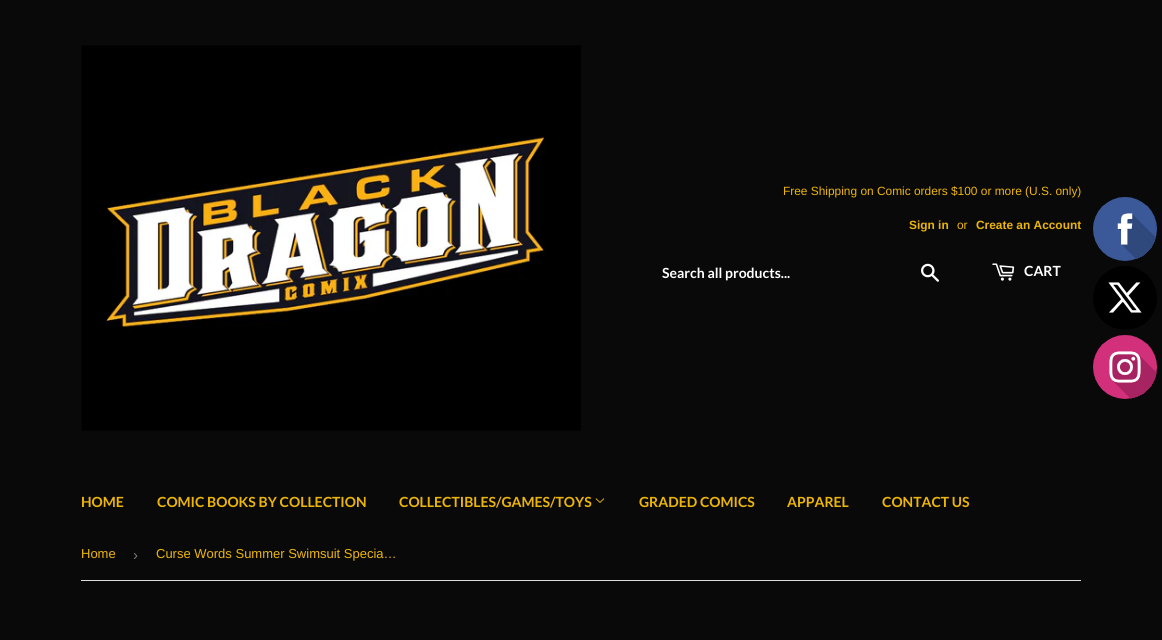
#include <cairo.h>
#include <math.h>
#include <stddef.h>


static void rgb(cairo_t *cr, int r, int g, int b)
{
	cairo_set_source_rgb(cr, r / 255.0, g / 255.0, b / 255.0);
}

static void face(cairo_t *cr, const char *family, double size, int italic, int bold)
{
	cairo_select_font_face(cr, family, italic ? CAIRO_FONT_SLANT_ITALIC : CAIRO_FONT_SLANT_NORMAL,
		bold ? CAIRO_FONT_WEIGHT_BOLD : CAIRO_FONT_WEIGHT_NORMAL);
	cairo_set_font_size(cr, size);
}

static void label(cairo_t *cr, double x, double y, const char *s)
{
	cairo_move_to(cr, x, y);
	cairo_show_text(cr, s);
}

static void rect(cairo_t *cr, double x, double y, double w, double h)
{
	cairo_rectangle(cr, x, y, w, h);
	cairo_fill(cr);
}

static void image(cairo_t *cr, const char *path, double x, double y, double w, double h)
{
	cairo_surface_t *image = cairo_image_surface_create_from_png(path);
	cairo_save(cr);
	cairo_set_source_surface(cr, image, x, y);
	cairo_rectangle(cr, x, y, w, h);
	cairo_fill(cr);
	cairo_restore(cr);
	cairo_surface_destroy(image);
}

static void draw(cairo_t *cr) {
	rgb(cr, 9, 9, 9);
	cairo_paint(cr);
	image(cr, "image0.png", 81, 45, 500, 386);
	face(cr, "Liberation Sans", 11.9, 0, 0);
	rgb(cr, 237, 182, 6);
	label(cr, 783, 195, "Free Shipping on Comic orders $100 or more (U.S. only)");
	face(cr, "Liberation Sans", 11.9, 0, 1);
	label(cr, 909, 229, "Sign in");
	face(cr, "Liberation Sans", 11.9, 0, 0);
	label(cr, 957, 229, "or");
	face(cr, "Liberation Sans", 11.9, 0, 1);
	label(cr, 976, 229, "Create an Account");
	face(cr, "Lato", 14, 0, 1);
	rgb(cr, 255, 255, 255);
	label(cr, 662, 278, "Search all products...");
	image(cr, "image1.png", 921, 263, 18, 19);
	image(cr, "image2.png", 992, 263, 23, 18);
	label(cr, 1024, 276, "CART");
	rgb(cr, 237, 182, 6);
	label(cr, 81, 507, "HOME");
	label(cr, 157, 507, "COMIC BOOKS BY COLLECTION");
	label(cr, 399, 507, "COLLECTIBLES/GAMES/TOYS");
	image(cr, "image3.png", 595, 498, 10, 5);
	label(cr, 639, 507, "GRADED COMICS");
	label(cr, 787, 507, "APPAREL");
	label(cr, 882, 507, "CONTACT US");
	image(cr, "image4.png", 1093, 197, 64, 202);
	rgb(cr, 222, 222, 222);
	rect(cr, 81, 580, 1000, 1);
	face(cr, "Liberation Sans", 13, 0, 0);
	rgb(cr, 237, 182, 6);
	label(cr, 81, 558, "Home");
	face(cr, "Liberation Sans", 15, 0, 0);
	rgb(cr, 118, 118, 118);
	label(cr, 133, 560, "›");
	face(cr, "Liberation Sans", 13, 0, 0);
	rgb(cr, 237, 182, 6);
	label(cr, 156, 558, "Curse Words Summer Swimsuit Specia…");
}

int main(void) {
	cairo_surface_t *surface = cairo_image_surface_create(CAIRO_FORMAT_RGB24, 1162, 640);
	cairo_t *cr = cairo_create(surface);
	cairo_font_options_t *options = cairo_font_options_create();
	cairo_font_options_set_hint_metrics(options, CAIRO_HINT_METRICS_OFF);
	cairo_font_options_set_hint_style(options, CAIRO_HINT_STYLE_NONE);
	cairo_set_font_options(cr, options);
	cairo_set_miter_limit(cr, 4);
	draw(cr);
	cairo_surface_write_to_png(surface, "render.png");
	cairo_font_options_destroy(options);
	cairo_destroy(cr);
	cairo_surface_destroy(surface);
	return 0;
}
